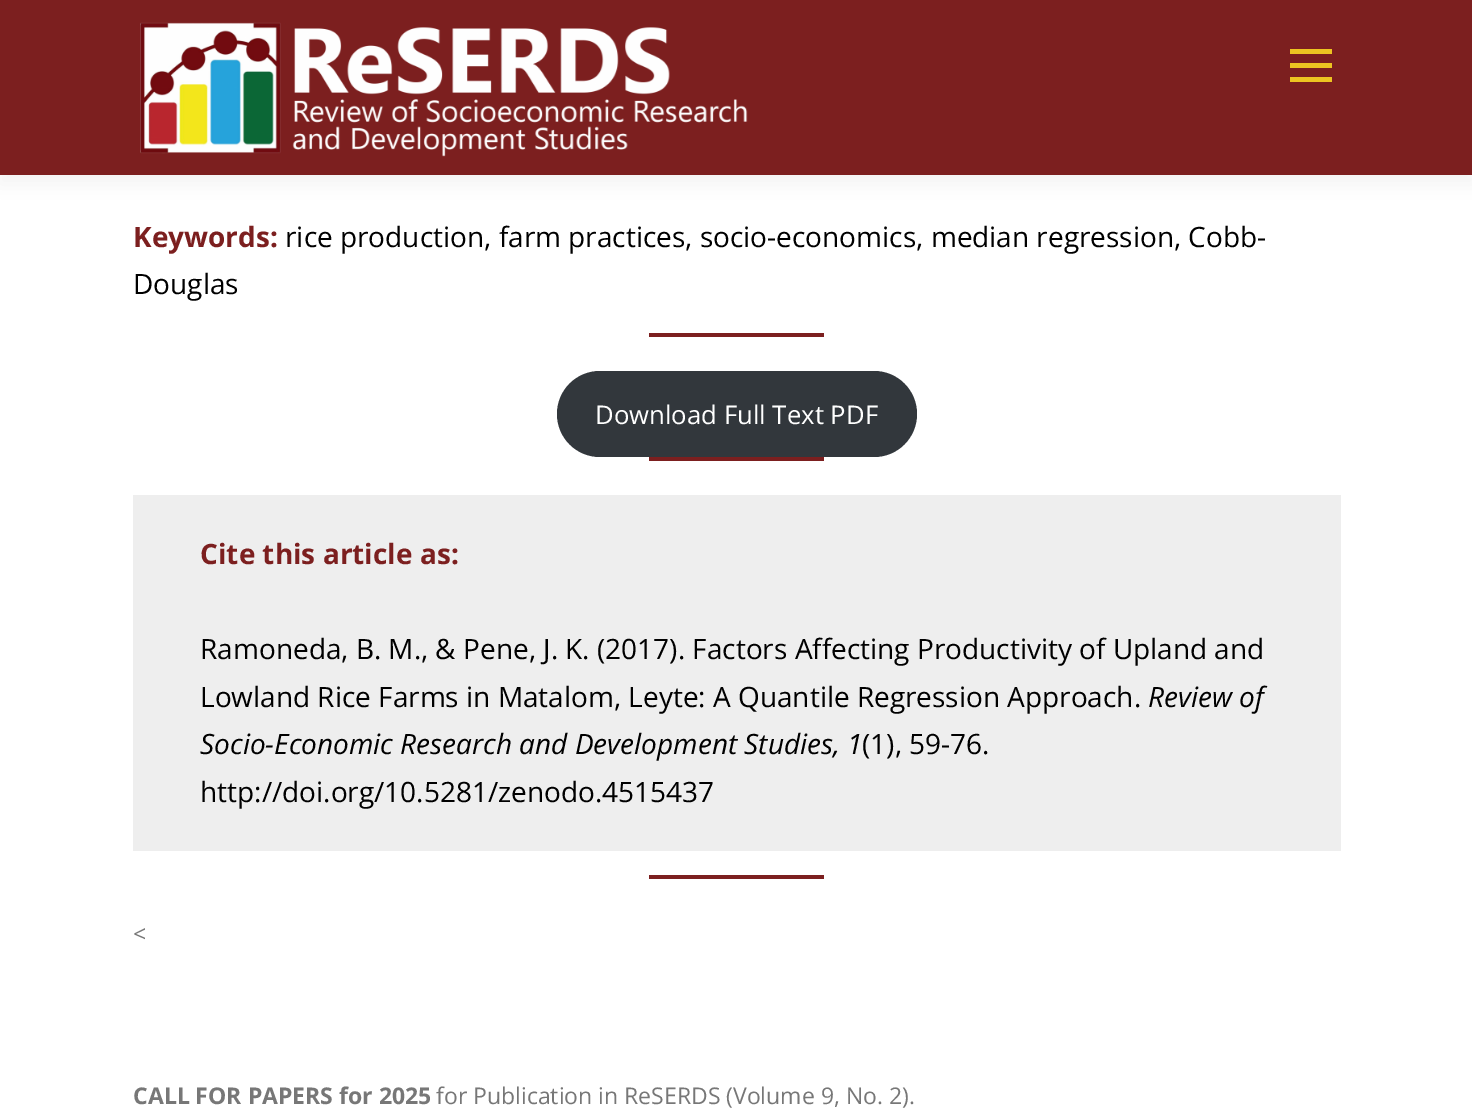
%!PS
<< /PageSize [1472 1114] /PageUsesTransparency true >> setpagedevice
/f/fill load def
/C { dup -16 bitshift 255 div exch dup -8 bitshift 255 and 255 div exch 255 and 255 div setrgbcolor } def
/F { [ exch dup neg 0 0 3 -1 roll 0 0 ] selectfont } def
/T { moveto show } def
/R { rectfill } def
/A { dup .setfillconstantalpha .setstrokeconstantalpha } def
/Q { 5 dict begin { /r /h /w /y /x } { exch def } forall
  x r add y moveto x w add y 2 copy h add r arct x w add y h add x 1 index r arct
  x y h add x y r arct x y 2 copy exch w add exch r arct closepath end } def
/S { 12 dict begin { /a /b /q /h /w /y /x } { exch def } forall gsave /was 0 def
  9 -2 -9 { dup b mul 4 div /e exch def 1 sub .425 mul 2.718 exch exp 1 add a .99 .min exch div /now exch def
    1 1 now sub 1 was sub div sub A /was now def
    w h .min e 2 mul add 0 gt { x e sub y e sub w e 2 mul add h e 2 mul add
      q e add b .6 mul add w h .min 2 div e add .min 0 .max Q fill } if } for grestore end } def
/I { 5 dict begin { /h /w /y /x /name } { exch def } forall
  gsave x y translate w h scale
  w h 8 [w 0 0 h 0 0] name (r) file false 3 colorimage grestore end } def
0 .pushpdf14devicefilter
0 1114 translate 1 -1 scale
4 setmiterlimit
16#FFFFFF C
0 0 1472 1114 R
16#323232 C
0 9 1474 175 0 9 .06 S
16#7C1F1F C
0 0 1472 175 R
(1.rgb) 140 22 608 135 I
16#EDC421 C
1290 63 42 5 R
1290 49 42 5 R
1290 77 42 5 R
/OpenSans-Bold 28 F
16#7C1F1F C
(Keywords:) 133 247 T
/OpenSans-Regular 28 F
16#000000 C
(rice production, farm practices, socio-economics, median regression, Cobb-) 285 247 T
(Douglas) 133 294 T
16#7C1F1F C
649 333 175 4 R
16#32373C C
557 371 360 86 43 Q f
/OpenSans-Regular 25.75 F
16#FFFFFF C
(Download Full Text PDF) 595 424 T
16#7C1F1F C
649 457 175 4 R
16#EEEEEE C
133 495 1208 356 R
/OpenSans-Bold 28 F
16#7C1F1F C
(Cite this article as:) 200 564 T
/OpenSans-Regular 28 F
16#000000 C
(Ramoneda, B. M., & Pene, J. K. \(2017\). Factors Affecting Productivity of Upland and) 200 659 T
(Lowland Rice Farms in Matalom, Leyte: A Quantile Regression Approach.) 200 707 T
/OpenSans-Italic 28 F
(Review of) 1148 707 T
(Socio-Economic Research and Development Studies, 1) 200 754 T
/OpenSans-Regular 28 F
(\(1\), 59-76.) 862 754 T
(http://doi.org/10.5281/zenodo.4515437) 200 802 T
16#7C1F1F C
649 875 175 4 R
/OpenSans-Regular 23 F
16#777777 C
(<) 133 942 T
/OpenSans-Bold 23 F
(CALL FOR PAPERS for 2025) 133 1104 T
/OpenSans-Regular 23 F
(for Publication in ReSERDS \(Volume 9, No. 2\).) 436 1104 T
.poppdf14devicefilter showpage
